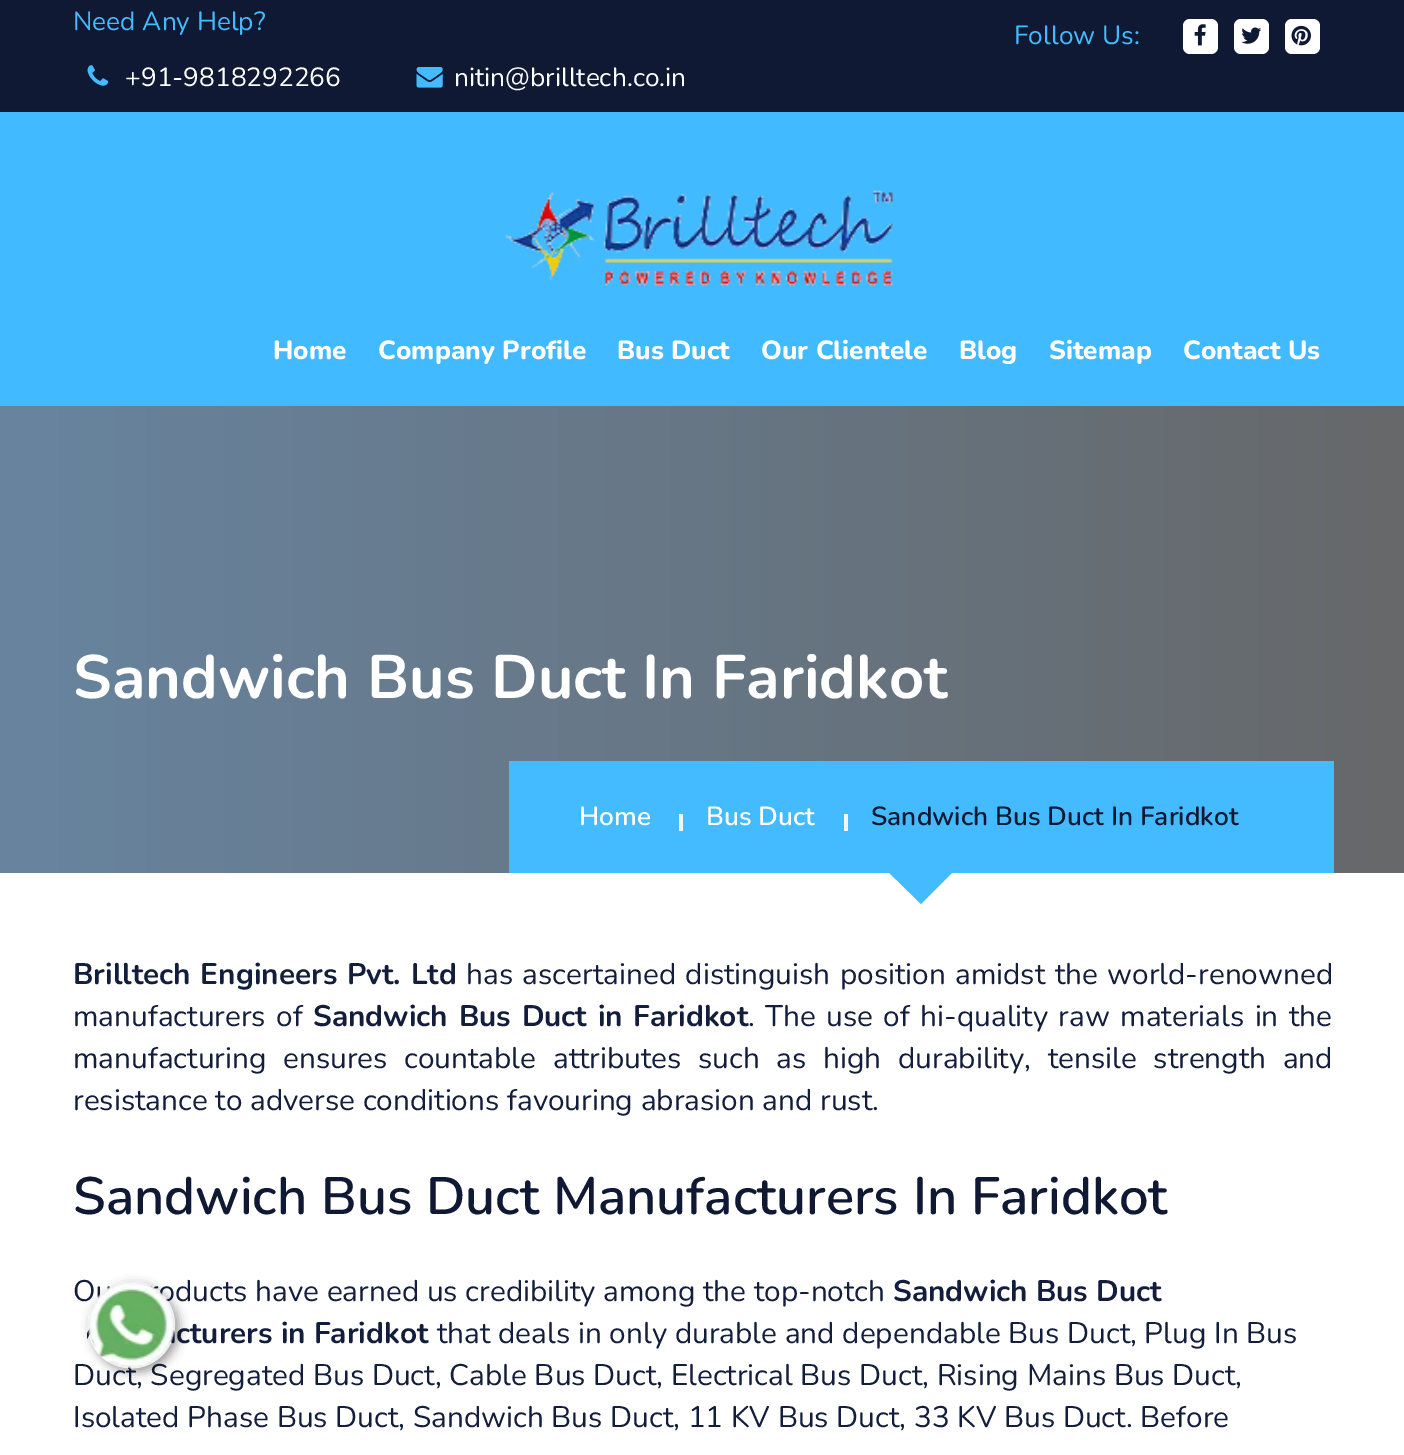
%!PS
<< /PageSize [1404 1455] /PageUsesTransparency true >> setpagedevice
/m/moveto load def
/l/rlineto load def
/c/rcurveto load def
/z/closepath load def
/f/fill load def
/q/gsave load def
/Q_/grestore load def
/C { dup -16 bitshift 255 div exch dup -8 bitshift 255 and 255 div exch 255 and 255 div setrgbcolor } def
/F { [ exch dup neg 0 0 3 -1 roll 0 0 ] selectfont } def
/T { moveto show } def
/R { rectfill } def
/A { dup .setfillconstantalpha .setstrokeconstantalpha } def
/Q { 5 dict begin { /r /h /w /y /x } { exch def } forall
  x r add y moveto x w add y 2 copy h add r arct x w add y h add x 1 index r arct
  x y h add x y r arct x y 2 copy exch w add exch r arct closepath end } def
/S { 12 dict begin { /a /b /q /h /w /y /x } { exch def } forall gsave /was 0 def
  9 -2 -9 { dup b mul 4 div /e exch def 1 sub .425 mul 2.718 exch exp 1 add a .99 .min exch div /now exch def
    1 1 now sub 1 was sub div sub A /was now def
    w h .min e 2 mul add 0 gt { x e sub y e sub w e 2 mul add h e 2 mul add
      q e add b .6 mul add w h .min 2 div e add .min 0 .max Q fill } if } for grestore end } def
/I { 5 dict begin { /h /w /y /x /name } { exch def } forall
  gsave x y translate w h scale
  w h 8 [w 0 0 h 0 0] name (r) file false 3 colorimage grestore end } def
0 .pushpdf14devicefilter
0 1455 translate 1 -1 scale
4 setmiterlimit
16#FFFFFF C
0 0 1404 1455 R
16#0F1934 C
0 0 1404 112 R
/Nunito-Regular 26.25 F
16#45BBFF C
(Need Any Help?) 73 30 T
(1.rgb) 87 65 22 21 I
16#FFFFFF C
(+91-9818292266) 125 86 T
(2.rgb) 416 67 27 21 I
(nitin@brilltech.co.in) 454 86 T
16#45BBFF C
(Follow Us:) 1014 44 T
16#FFFFFF C
1183 19 35 35 7 Q f
(3.rgb) 1194 24 12 22 I
1234 19 35 35 7 Q f
(4.rgb) 1241 27 21 17 I
1285 19 35 35 7 Q f
(5.rgb) 1291 25 20 21 I
16#42BAFF C
0 112 1404 294 R
(6.rgb) 505 190 388 96 I
/Nunito-ExtraBold 26.25 F
16#FFFFFF C
(Home) 273 359 T
(Company Profile) 378 359 T
(Bus Duct) 617 359 T
(Our Clientele) 761 359 T
(Blog) 959 359 T
(Sitemap) 1049 359 T
(Contact Us) 1183 359 T
16#45BBFF C
921 805 m 49 50 l -49 49 l -50 -49 l z f
0.6 A
q 0 406 m 1404 0 l 0 467 l -1404 0 l z clip newpath
<< /ShadingType 2 /ColorSpace /DeviceRGB /Coords [0 640 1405 640] /Extend [true true] /Function << /FunctionType 2 /Domain [0 1] /C0 [.004 .196 .373] /C1 [0 .012 .024] /N 1 >> >> shfill Q_
/Nunito-Bold 61.25 F
1 A
16#FFFFFF C
(Sandwich Bus Duct In Faridkot) 73 698 T
16#45BBFF C
509 761 825 112 R
/Nunito-SemiBold 26.25 F
16#FFFFFF C
(Home) 579 825 T
16#F4F4F4 C
679 814 4 17 R
16#FFFFFF C
(Bus Duct) 706 825 T
16#F4F4F4 C
844 814 4 17 R
16#0F1934 C
(Sandwich Bus Duct In Faridkot) 871 825 T
/Nunito-Bold 29.75 F
16#131E3C C
73 984 m 1.75 0 32 (Brilltech Engineers Pvt. Ltd) widthshow
/Nunito-Regular 29.75 F
466 984 m 1.75 0 32 (has ascertained distinguish position amidst the world-renowned) widthshow
73 1026 m 2.75 0 32 (manufacturers of) widthshow
/Nunito-Bold 29.75 F
313 1026 m 2.75 0 32 (Sandwich Bus Duct in Faridkot) widthshow
/Nunito-Regular 29.75 F
748 1026 m 2.75 0 32 (. The use of hi-quality raw materials in the) widthshow
73 1068 m 9 0 32 (manufacturing ensures countable attributes such as high durability, tensile strength and) widthshow
(resistance to adverse conditions favouring abrasion and rust.) 73 1110 T
/Nunito-SemiBold 52.5 F
16#0F1934 C
(Sandwich Bus Duct Manufacturers In Faridkot) 73 1214 T
/Nunito-Regular 29.75 F
16#131E3C C
(O) 73 1301 T
(ducts have earned us credibility among the top-notch) 175 1301 T
/Nunito-Bold 29.75 F
(Sandwich Bus Duct) 893 1301 T
(cturers in Faridkot) 176 1343 T
/Nunito-Regular 29.75 F
(that deals in only durable and dependable Bus Duct, Plug In Bus) 437 1343 T
(Duct, Segregated Bus Duct, Cable Bus Duct, Electrical Bus Duct, Rising Mains Bus Duct,) 73 1385 T
(Isolated Phase Bus Duct, Sandwich Bus Duct, 11 KV Bus Duct, 33 KV Bus Duct. Before) 73 1427 T
q
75 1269 m 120 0 l 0 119 l -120 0 l z 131.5 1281 m 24 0 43.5 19.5 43.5 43.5 c 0 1 l 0 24 -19.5 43.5 -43.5 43.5 c -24 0 -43.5 -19.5 -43.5 -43.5 c 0 -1 l 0 -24 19.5 -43.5 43.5 -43.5 c z eoclip newpath
16#000000 C
91 1285 88 87 43.5 5 .4 S
Q_
(7.rgb) 87 1281 89 88 I
.poppdf14devicefilter showpage
